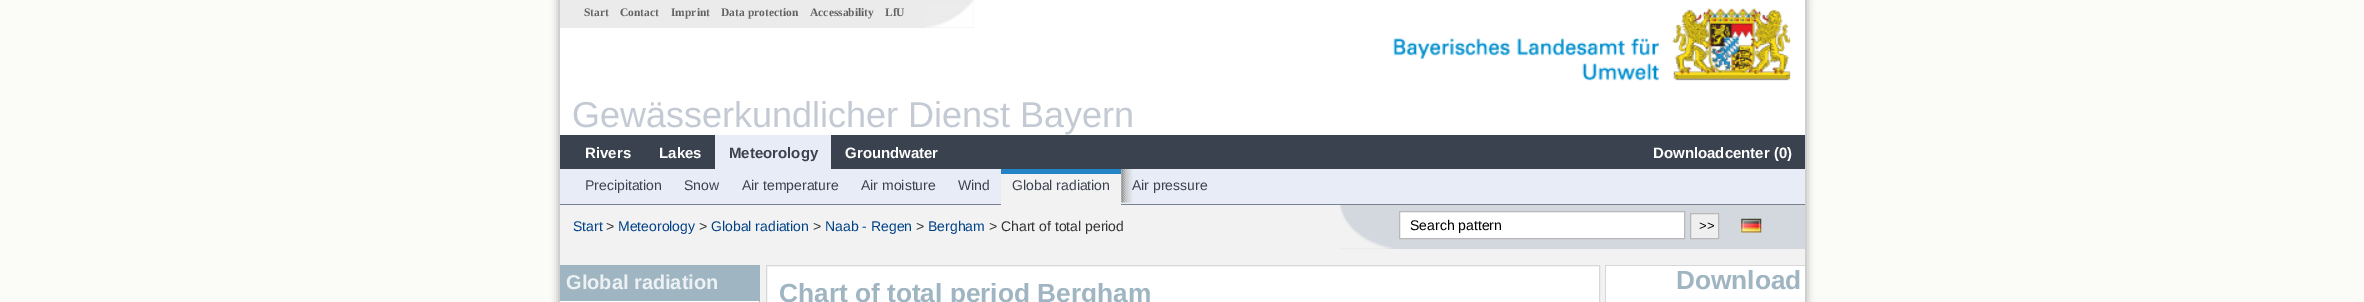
%!PS
<< /PageSize [2364 302] /PageUsesTransparency true >> setpagedevice
/m/moveto load def
/l/rlineto load def
/z/closepath load def
/f/fill load def
/s/stroke load def
/q/gsave load def
/Q_/grestore load def
/C { dup -16 bitshift 255 div exch dup -8 bitshift 255 and 255 div exch 255 and 255 div setrgbcolor } def
/F { [ exch dup neg 0 0 3 -1 roll 0 0 ] selectfont } def
/T { moveto show } def
/R { rectfill } def
/A { dup .setfillconstantalpha .setstrokeconstantalpha } def
/Q { 5 dict begin { /r /h /w /y /x } { exch def } forall
  x r add y moveto x w add y 2 copy h add r arct x w add y h add x 1 index r arct
  x y h add x y r arct x y 2 copy exch w add exch r arct closepath end } def
/S { 12 dict begin { /a /b /q /h /w /y /x } { exch def } forall gsave /was 0 def
  9 -2 -9 { dup b mul 4 div /e exch def 1 sub .425 mul 2.718 exch exp 1 add a .99 .min exch div /now exch def
    1 1 now sub 1 was sub div sub A /was now def
    w h .min e 2 mul add 0 gt { x e sub y e sub w e 2 mul add h e 2 mul add
      q e add b .6 mul add w h .min 2 div e add .min 0 .max Q fill } if } for grestore end } def
/I { 5 dict begin { /h /w /y /x /name } { exch def } forall
  gsave x y translate w h scale
  w h 8 [w 0 0 h 0 0] name (r) file false 3 colorimage grestore end } def
0 .pushpdf14devicefilter
0 302 translate 1 -1 scale
4 setmiterlimit
16#FBFBF8 C
0 0 2364 302 R
16#000000 C
559 0 1247 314 0 4 .35 S
16#FFFFFF C
560 0 1245 135 R
16#CECFD4 C
1805 0 1 302 R
559 0 1 302 R
16#EBEBEB C
560 0 414 28 R
(1.rgb) 926 0 48 28 I
/LiberationSerif-Bold 11.5 F
16#636363 C
(Start) 584 16 T
(Contact) 620 16 T
(Imprint) 671 16 T
(Data protection) 721 16 T
(Accessability) 810 16 T
(LfU) 885 16 T
(2.rgb) 1393 8 398 73 I
/LiberationSans-Regular 36 F
16#C3CAD4 C
(Gewässerkundlicher Dienst Bayern) 572 127 T
16#3B424F C
560 135 1245 34 R
/LiberationSans-Bold 15 F
16#FFFFFF C
(Rivers) 585 158 T
(Lakes) 659 158 T
16#E7ECF7 C
715 135 116 34 R
16#3B424F C
(Meteorology) 729 158 T
16#FFFFFF C
(Groundwater) 845 158 T
(Downloadcenter \(0\)) 1653 158 T
16#E7ECF7 C
560 169 1245 35 R
16#7A8291 C
560 204 1245 1 R
/LiberationSans-Regular 14 F
16#3B424F C
(Precipitation) 585 190 T
(Snow) 684 190 T
(Air temperature) 742 190 T
(Air moisture) 861 190 T
(Wind) 958 190 T
16#F2F2F2 C
1001 174 120 31 R
16#2484C6 C
1001 169 120 5 R
16#3B424F C
(Global radiation) 1012 190 T
(3.rgb) 1121 169 12 34 I
(Air pressure) 1132 190 T
16#F2F2F2 C
560 205 1245 97 R
16#004185 C
(Start) 573 231 T
16#333333 C
(>) 606 231 T
16#004185 C
(Meteorology) 618 231 T
16#333333 C
(>) 699 231 T
16#004185 C
(Global radiation) 711 231 T
16#333333 C
(>) 813 231 T
16#004185 C
(Naab - Regen) 825 231 T
16#333333 C
(>) 916 231 T
16#004185 C
(Bergham) 928 231 T
16#333333 C
(> Chart of total period) 989 231 T
16#D3D8DF C
1340 205 465 44 R
(4.rgb) 1340 205 54 44 I
16#FFFFFF C
1399.5 211.5 m 285 0 l 0 27 l -285 0 l z q f Q_
16#B8B8B8 C
s
16#000000 C
(Search pattern) 1410 230 T
16#EFEFEF C
1690.5 213.5 m 28 0 l 0 25 l -28 0 l z q f Q_
16#B8B8B8 C
s
/LiberationSans-Regular 13 F
16#000000 C
(>>) 1699 230 T
(5.rgb) 1741 218 21 15 I
16#FFFFFF C
560 301 199 1 R
16#9FB5C1 C
560 265 200 1 R
759 265 1 37 R
560 266 199 35 R
/LiberationSans-Bold 20 F
16#EDF1F3 C
(Global radiation) 566 289 T
16#FFFFFF C
766.5 265.5 m 833 0 l 0 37 l -833 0 l z q f Q_
16#D7D7D7 C
s
/LiberationSans-Bold 26.25 F
16#9FB5C1 C
(Chart of total period Bergham) 779 302 T
16#FFFFFF C
1606 266 199 36 R
16#D7D7D7 C
1605 265 200 1 R
1605 265 1 37 R
16#9FB5C1 C
(Download) 1676 289 T
.poppdf14devicefilter showpage
